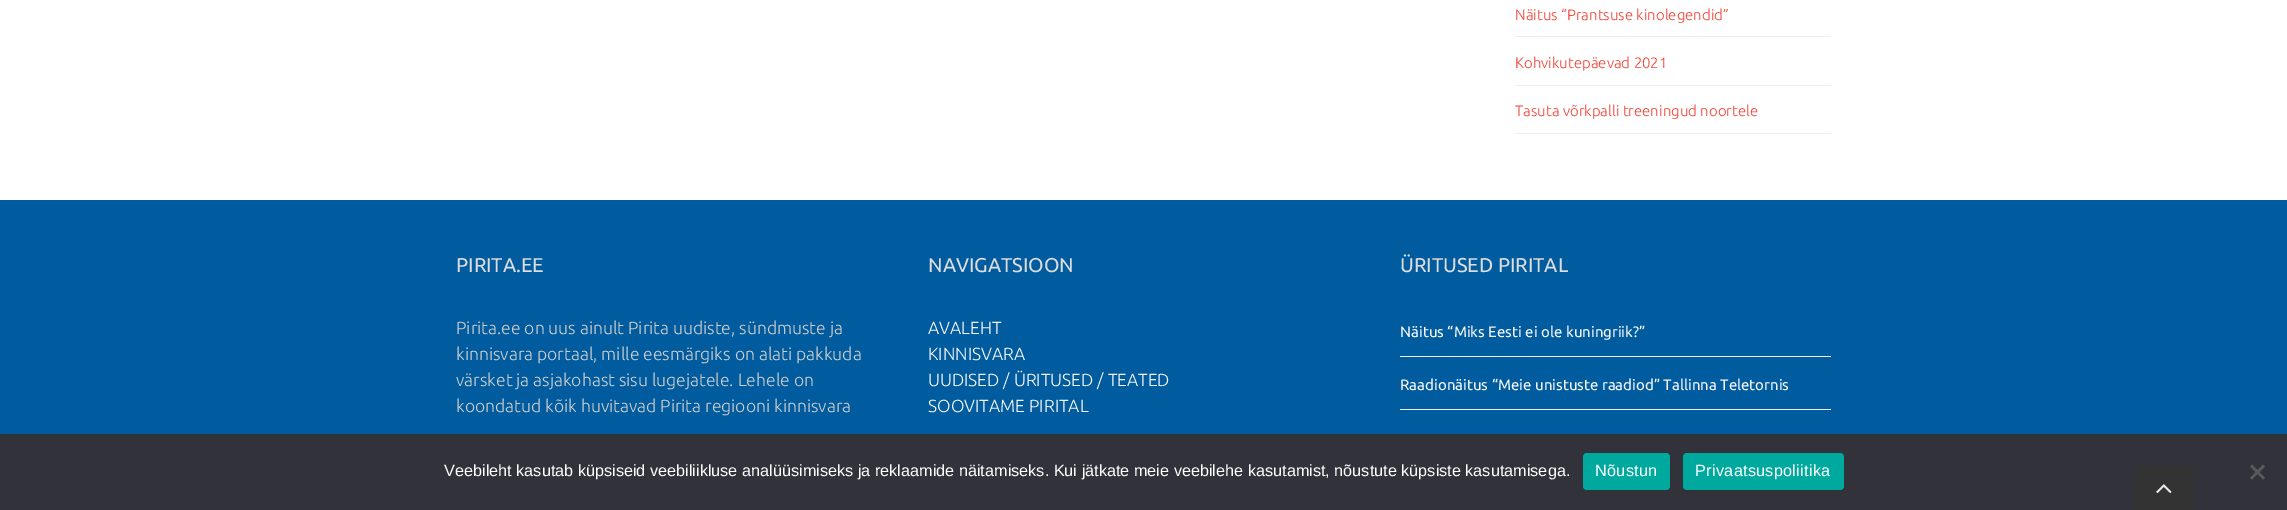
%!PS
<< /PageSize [2287 510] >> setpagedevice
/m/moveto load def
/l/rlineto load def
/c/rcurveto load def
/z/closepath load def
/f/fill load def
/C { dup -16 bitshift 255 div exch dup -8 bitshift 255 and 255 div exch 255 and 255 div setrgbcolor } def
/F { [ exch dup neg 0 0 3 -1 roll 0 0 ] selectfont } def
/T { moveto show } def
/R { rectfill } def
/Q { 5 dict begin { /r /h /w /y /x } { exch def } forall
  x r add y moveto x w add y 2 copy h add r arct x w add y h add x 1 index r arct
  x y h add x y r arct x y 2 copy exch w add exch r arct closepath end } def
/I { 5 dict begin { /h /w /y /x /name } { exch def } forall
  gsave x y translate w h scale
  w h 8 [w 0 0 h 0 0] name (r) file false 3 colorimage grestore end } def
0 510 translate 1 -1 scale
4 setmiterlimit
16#FFFFFF C
0 0 2287 510 R
16#EEEEEE C
1515 36 316 1 R
/Ubuntu-Light 15 F
16#F44336 C
(Näitus “Prantsuse kinolegendid”) 1515 20 T
16#EEEEEE C
1515 85 316 1 R
16#F44336 C
(Kohvikutepäevad 2021) 1515 68 T
16#EEEEEE C
1515 133 316 1 R
16#F44336 C
(Tasuta võrkpalli treeningud noortele) 1515 116 T
16#005C9E C
0 200 2287 234 R
/Ubuntu-Regular 20 F
16#DDDDDD C
(PIRITA.EE) 456 272 T
/Ubuntu-Light 17.5 F
16#CCCCCC C
(Pirita.ee on uus ainult Pirita uudiste, sündmuste ja) 456 334 T
(kinnisvara portaal, mille eesmärgiks on alati pakkuda) 456 360 T
(värsket ja asjakohast sisu lugejatele. Lehele on) 456 386 T
(koondatud kõik huvitavad Pirita regiooni kinnisvara) 456 412 T
/Ubuntu-Regular 20 F
16#DDDDDD C
(NAVIGATSIOON) 928 272 T
/Ubuntu-Light 17.5 F
16#F7F7F7 C
(AVALEHT) 928 334 T
(KINNISVARA) 928 360 T
(UUDISED / ÜRITUSED / TEATED) 928 386 T
(SOOVITAME PIRITAL) 928 412 T
/Ubuntu-Regular 20 F
16#DDDDDD C
(ÜRITUSED PIRITAL) 1400 272 T
16#EEEEEE C
1400 356 431 1 R
/Ubuntu-Regular 15 F
16#F7F7F7 C
(Näitus “Miks Eesti ei ole kuningriik?”) 1400 337 T
16#EEEEEE C
1400 409 431 1 R
16#F7F7F7 C
(Raadionäitus “Meie unistuste raadiod” Tallinna Teletornis) 1400 390 T
16#32323A C
0 434 2287 76 R
/LiberationSans-Regular 16.25 F
16#FFFFFF C
(Veebileht kasutab küpsiseid veebiliikluse analüüsimiseks ja reklaamide näitamiseks. Kui jätkate meie veebilehe kasutamist, nõustute küpsiste kasutamisega.) 444 476 T
16#00A99D C
1583 453 87 37 4 Q f
16#FFFFFF C
1595 476 m .3 0 (Nõustun) ashow
16#00A99D C
1683 453 161 37 4 Q f
16#FFFFFF C
1695 476 m .3 0 (Privaatsuspoliitika) ashow
16#59595D C
2263 464.5 m 2 2 l -13 13 l -2 -1.5 l z f
2250 466.5 m 2 -2 l 13 13.5 l -2 1.5 l z f
16#333334 C
2142 466 m 44 0 l 4.5 0 8 3.5 8 8 c 0 36 l -60 0 l 0 -36 l 0 -4.5 3.5 -8 8 -8 c z f
(1.rgb) 2156 484 16 10 I
showpage
